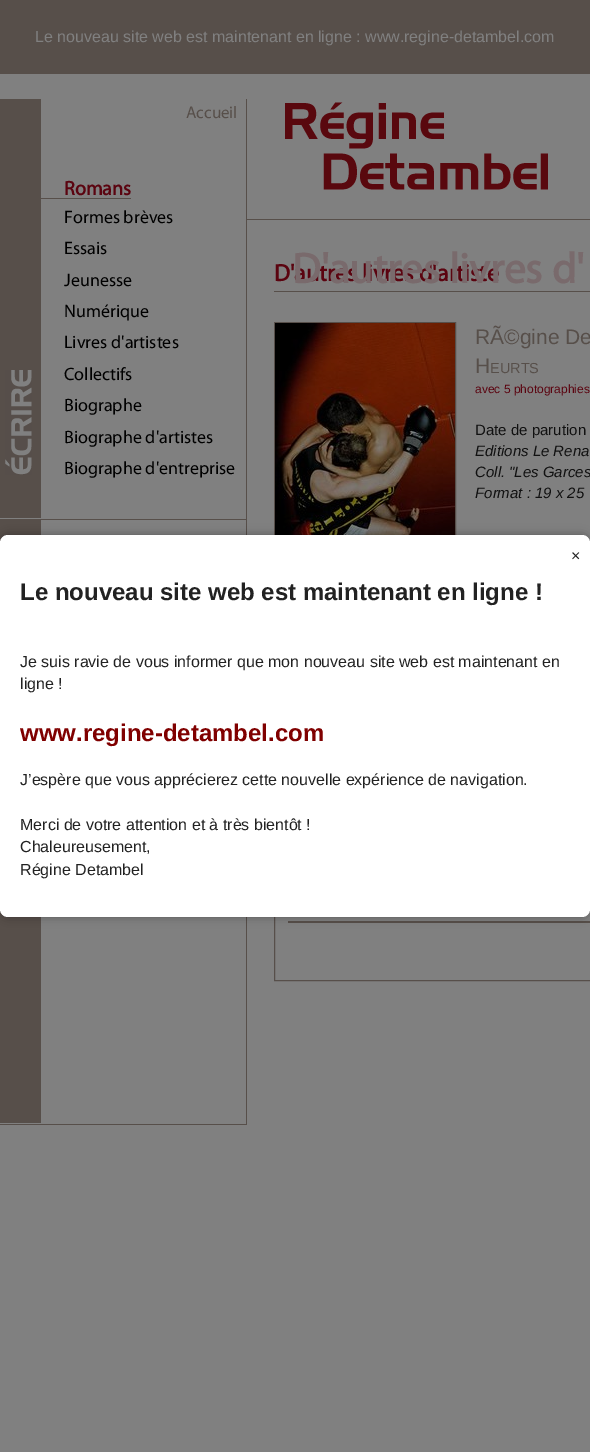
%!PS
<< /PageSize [590 1452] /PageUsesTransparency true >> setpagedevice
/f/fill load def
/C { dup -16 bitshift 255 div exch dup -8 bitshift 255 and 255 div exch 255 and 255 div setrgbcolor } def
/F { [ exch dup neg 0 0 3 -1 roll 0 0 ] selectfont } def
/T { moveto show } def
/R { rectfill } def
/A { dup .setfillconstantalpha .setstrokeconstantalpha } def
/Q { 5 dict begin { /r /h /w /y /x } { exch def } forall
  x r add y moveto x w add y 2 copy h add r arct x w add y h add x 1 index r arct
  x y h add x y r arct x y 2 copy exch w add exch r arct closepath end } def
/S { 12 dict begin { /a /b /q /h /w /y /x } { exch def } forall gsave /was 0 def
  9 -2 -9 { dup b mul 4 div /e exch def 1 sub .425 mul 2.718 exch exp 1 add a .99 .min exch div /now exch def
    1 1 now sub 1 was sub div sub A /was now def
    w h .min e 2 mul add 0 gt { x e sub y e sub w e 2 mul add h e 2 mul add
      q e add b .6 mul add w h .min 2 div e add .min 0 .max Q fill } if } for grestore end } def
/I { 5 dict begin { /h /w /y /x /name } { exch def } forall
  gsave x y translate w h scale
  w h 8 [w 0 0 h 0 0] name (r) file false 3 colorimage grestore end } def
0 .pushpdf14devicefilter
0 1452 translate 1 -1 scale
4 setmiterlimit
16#808080 C
0 0 590 1452 R
16#574F4A C
0 0 590 74 R
/LiberationSans-Regular 16 F
16#808080 C
(Le nouveau site web est maintenant en ligne : www.regine-detambel.com) 35 42 T
16#574F4A C
246 99 1 1026 R
0 519 246 1 R
0 99 41 419 R
(1.rgb) 5 370 27 105 I
/Myriad-Regular 17 F
(Accueil) 186 118 T
40 198 91 1 R
/Myriad-Bold 20 F
16#5B0410 C
(Romans) 64 195 T
/Myriad-Regular 18 F
16#000000 C
(Formes brèves) 64 223 T
(Essais) 64 254 T
(Jeunesse) 64 286 T
(Numérique) 64 317 T
(Livres d'artistes) 64 348 T
(Collectifs) 64 380 T
(Biographe) 64 411 T
(Biographe d'artistes) 64 443 T
(Biographe d'entreprise) 64 474 T
16#574F4A C
0 1124 246 1 R
0 520 41 603 R
247 219 343 1 R
(2.rgb) 285 102 263 88 I
274 291 316 1 R
/Myriad-Bold 24 F
16#5B0410 C
(D'autres livres d'artiste) 274 281 T
/Myriad-Bold 43 F
16#796A6C C
(D'autres livres d') 292 283 T
16#574F4A C
274.5 322.5 181 272 rectstroke
(3.rgb) 275 323 180 212 I
/LiberationSans-Regular 21 F
(RÃ©gine De) 475 344 T
(H) 475 373 T
/LiberationSans-Regular 14.5 F
(EURTS) 490 373 T
/LiberationSans-Regular 12 F
16#5B0410 C
(avec 5 photographies) 475 393 T
/LiberationSans-Regular 15 F
16#111111 C
(Date de parution) 475 435 T
/LiberationSans-Italic 15 F
(Editions Le Rena) 475 456 T
(Coll. "Les Garces) 475 477 T
(Format : 19 x 25) 475 498 T
16#574F4A C
274.5 660.5 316 320 rectstroke
288 921 302 2 R
16#000000 C
0 535 590 382 8 5 .3 S
16#FFFFFF C
0 535 590 382 8 Q f
/LiberationSans-Regular 16 F
16#222222 C
(×) 571 561 T
/LiberationSans-Bold 24 F
(Le nouveau site web est maintenant en ligne !) 20 600 T
/LiberationSans-Regular 16 F
(Je suis ravie de vous informer que mon nouveau site web est maintenant en) 20 667 T
(ligne !) 20 689 T
/LiberationSans-Bold 24 F
16#800000 C
(www.regine-detambel.com) 20 741 T
/LiberationSans-Regular 16 F
16#222222 C
(J’espère que vous apprécierez cette nouvelle expérience de navigation.) 20 785 T
(Merci de votre attention et à très bientôt !) 20 830 T
(Chaleureusement,) 20 852 T
(Régine Detambel) 20 875 T
.poppdf14devicefilter showpage
